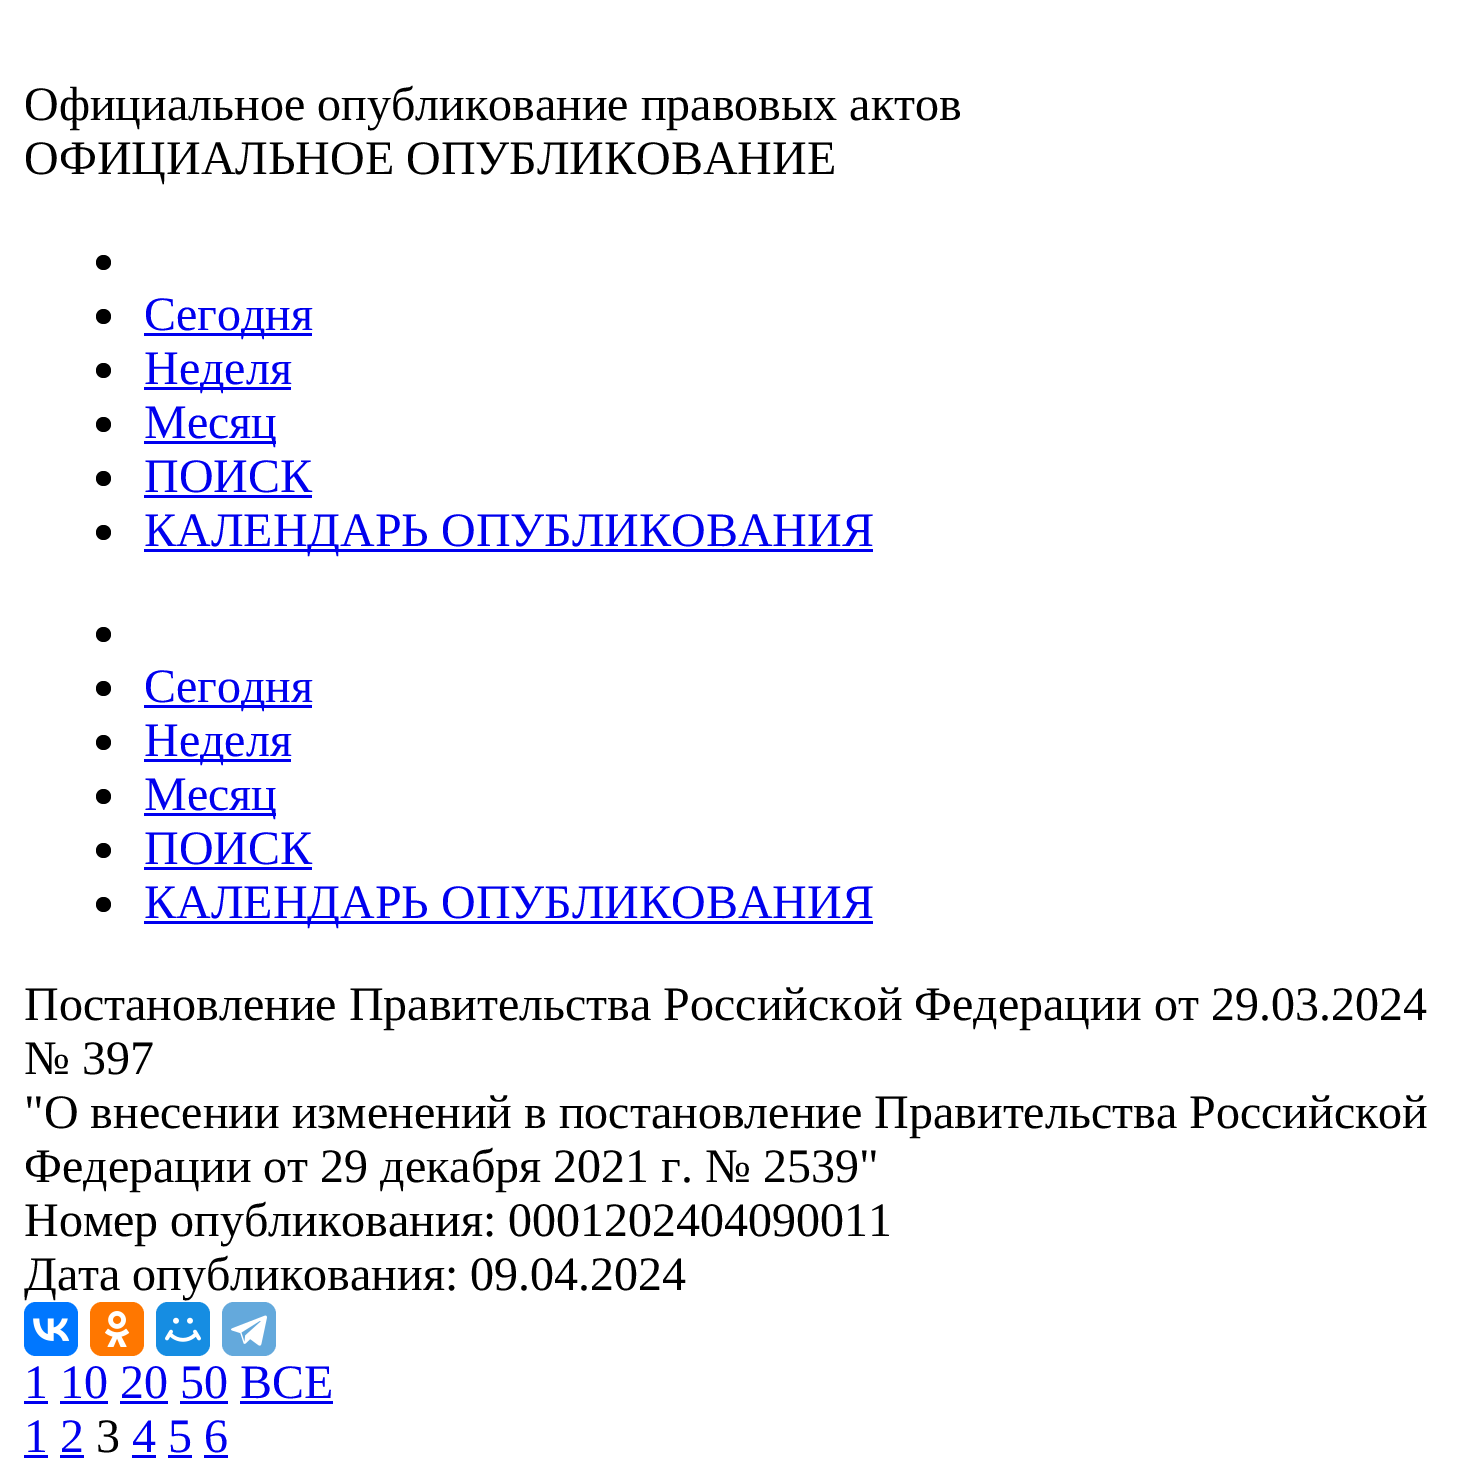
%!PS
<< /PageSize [1477 1471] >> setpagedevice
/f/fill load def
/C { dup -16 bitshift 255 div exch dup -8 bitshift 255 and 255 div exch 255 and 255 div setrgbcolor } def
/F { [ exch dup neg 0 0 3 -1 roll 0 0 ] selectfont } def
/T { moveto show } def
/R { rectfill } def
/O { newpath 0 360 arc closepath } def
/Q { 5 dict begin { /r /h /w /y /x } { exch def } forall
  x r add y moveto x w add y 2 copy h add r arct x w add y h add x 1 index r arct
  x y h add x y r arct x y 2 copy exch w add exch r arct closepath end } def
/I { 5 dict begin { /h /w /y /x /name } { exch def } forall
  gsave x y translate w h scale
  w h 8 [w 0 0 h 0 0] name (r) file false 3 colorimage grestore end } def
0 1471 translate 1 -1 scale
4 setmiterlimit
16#FFFFFF C
0 0 1477 1471 R
/LiberationSerif-Regular 48 F
16#000000 C
(Официальное опубликование правовых актов) 24 120 T
(ОФИЦИАЛЬНОЕ ОПУБЛИКОВАНИЕ) 24 174 T
103.5 262.5 7.5 O f
103.5 316.5 7.5 O f
16#0000EE C
144 333 168 3 R
(Сегодня) 144 330 T
16#000000 C
103.5 370.5 7.5 O f
16#0000EE C
144 387 147 3 R
(Неделя) 144 384 T
16#000000 C
103.5 424.5 7.5 O f
16#0000EE C
144 441 132 3 R
(Месяц) 144 438 T
16#000000 C
103.5 478.5 7.5 O f
16#0000EE C
(ПОИСК) 144 492 T
144 495 168 3 R
16#000000 C
103.5 532.5 7.5 O f
16#0000EE C
144 549 729 3 R
(КАЛЕНДАРЬ ОПУБЛИКОВАНИЯ) 144 546 T
16#000000 C
103.5 634.5 7.5 O f
103.5 688.5 7.5 O f
16#0000EE C
144 705 168 3 R
(Сегодня) 144 702 T
16#000000 C
103.5 742.5 7.5 O f
16#0000EE C
144 759 147 3 R
(Неделя) 144 756 T
16#000000 C
103.5 796.5 7.5 O f
16#0000EE C
144 813 132 3 R
(Месяц) 144 810 T
16#000000 C
103.5 850.5 7.5 O f
16#0000EE C
(ПОИСК) 144 864 T
144 867 168 3 R
16#000000 C
103.5 904.5 7.5 O f
16#0000EE C
144 921 729 3 R
(КАЛЕНДАРЬ ОПУБЛИКОВАНИЯ) 144 918 T
16#000000 C
(Постановление Правительства Российской Федерации от 29.03.2024) 24 1020 T
(№ 397) 24 1074 T
("О внесении изменений в постановление Правительства Российской) 24 1128 T
(Федерации от 29 декабря 2021 г. № 2539") 24 1182 T
(Номер опубликования: 0001202404090011) 24 1236 T
(Дата опубликования: 09.04.2024) 24 1290 T
16#0077FF C
24 1302 54 54 12 Q f
(1.rgb) 33 1318 37 23 I
16#FF7700 C
90 1302 54 54 12 Q f
(2.rgb) 105 1311 25 36 I
16#168DE2 C
156 1302 54 54 12 Q f
(3.rgb) 165 1317 36 25 I
16#64A9DC C
222 1302 54 54 12 Q f
(4.rgb) 231 1315 36 31 I
16#0000EE C
(1 10 20 50 ВСЕ) 24 1398 T
24 1401 24 3 R
60 1401 48 3 R
120 1401 48 3 R
180 1401 48 3 R
240 1401 93 3 R
(1 2) 24 1452 T
24 1455 24 3 R
16#000000 C
(3) 96 1452 T
16#0000EE C
(4 5 6) 132 1452 T
132 1455 24 3 R
60 1455 24 3 R
168 1455 24 3 R
204 1455 24 3 R
showpage
